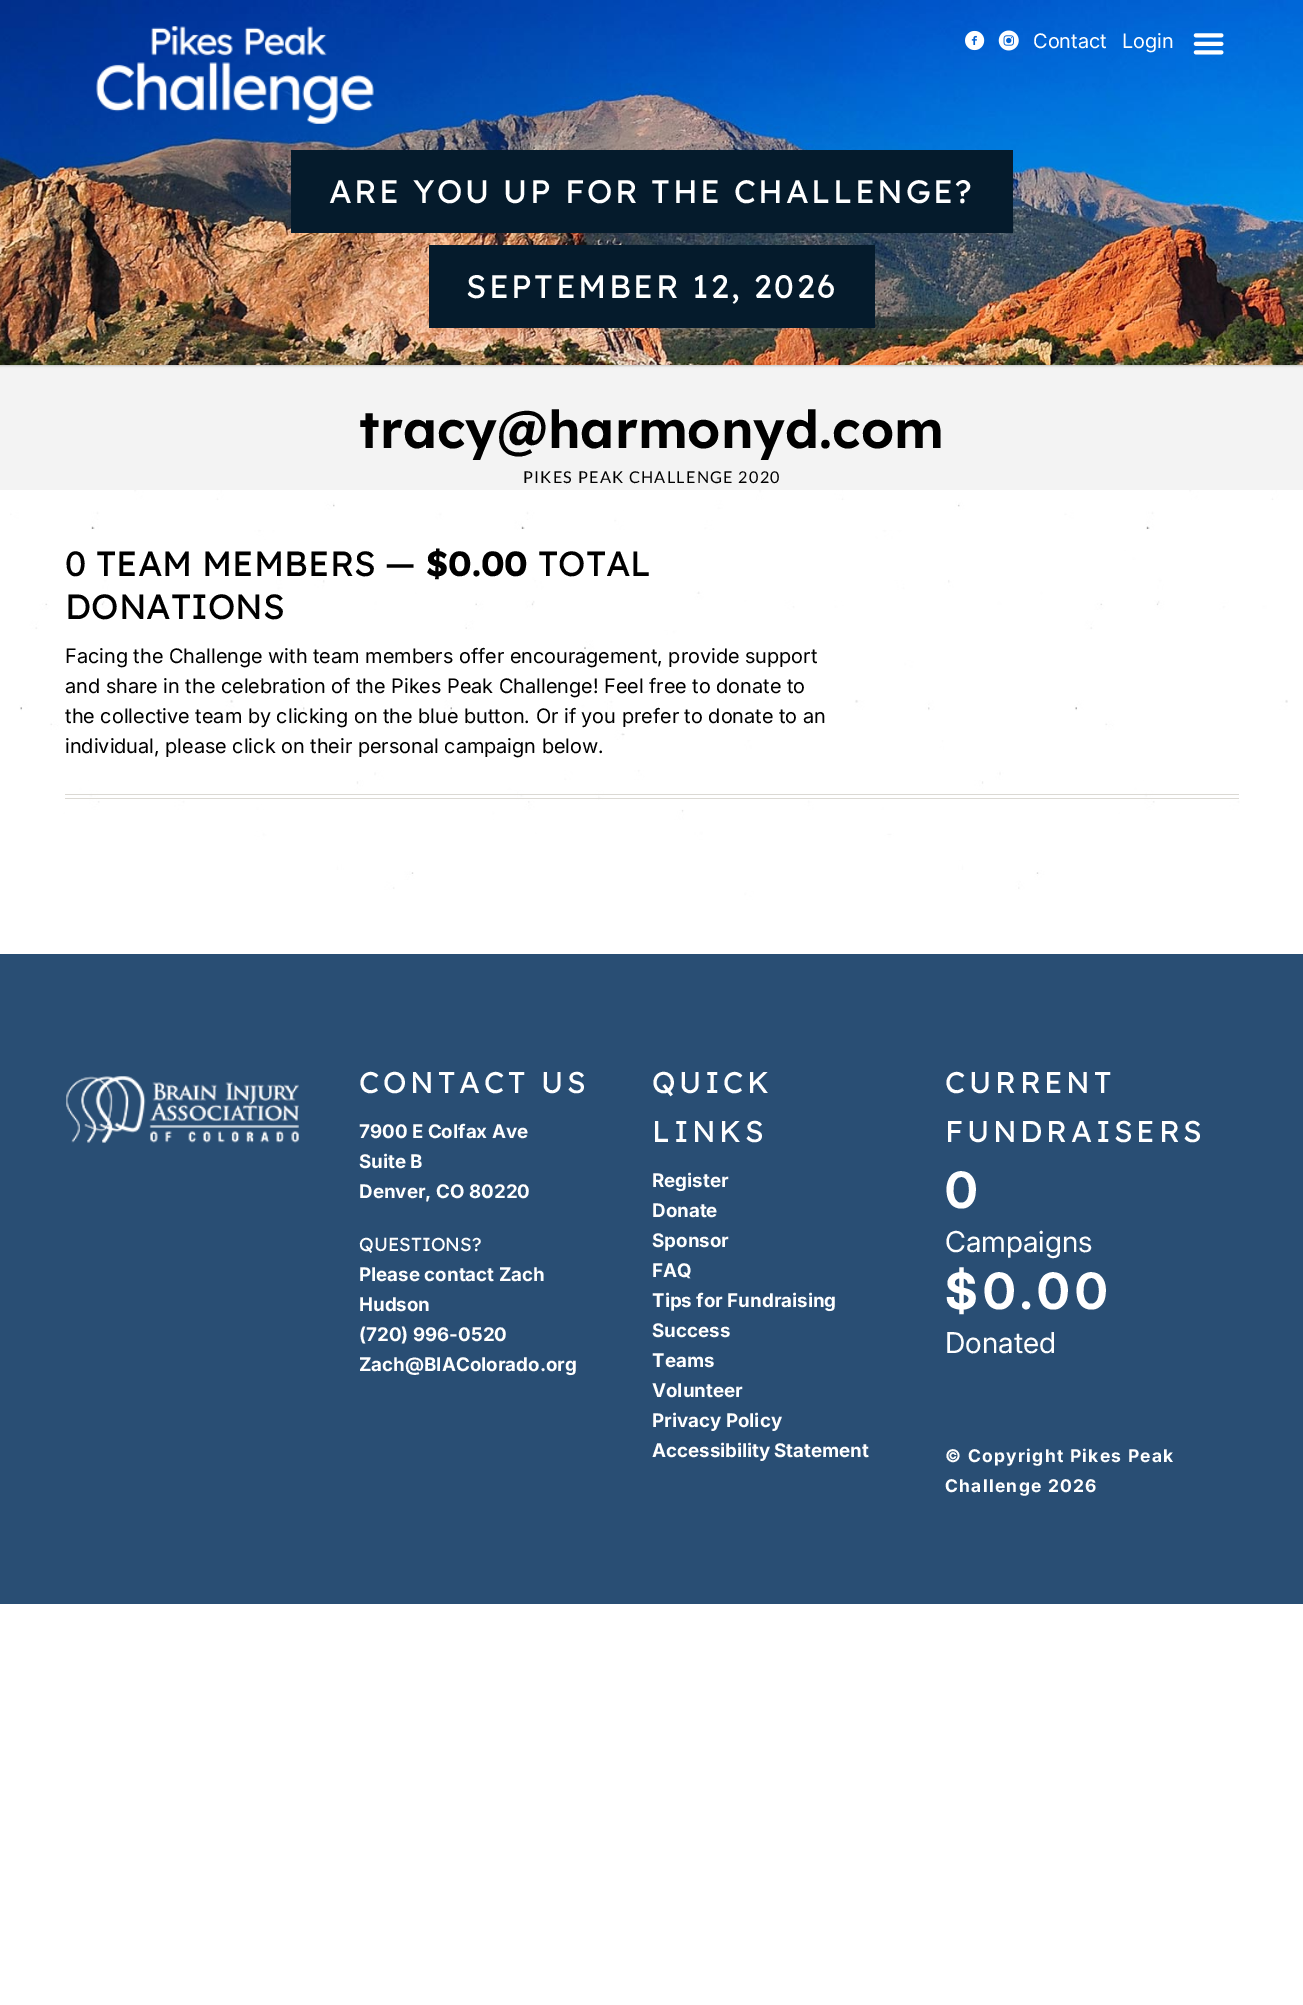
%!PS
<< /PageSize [1303 2005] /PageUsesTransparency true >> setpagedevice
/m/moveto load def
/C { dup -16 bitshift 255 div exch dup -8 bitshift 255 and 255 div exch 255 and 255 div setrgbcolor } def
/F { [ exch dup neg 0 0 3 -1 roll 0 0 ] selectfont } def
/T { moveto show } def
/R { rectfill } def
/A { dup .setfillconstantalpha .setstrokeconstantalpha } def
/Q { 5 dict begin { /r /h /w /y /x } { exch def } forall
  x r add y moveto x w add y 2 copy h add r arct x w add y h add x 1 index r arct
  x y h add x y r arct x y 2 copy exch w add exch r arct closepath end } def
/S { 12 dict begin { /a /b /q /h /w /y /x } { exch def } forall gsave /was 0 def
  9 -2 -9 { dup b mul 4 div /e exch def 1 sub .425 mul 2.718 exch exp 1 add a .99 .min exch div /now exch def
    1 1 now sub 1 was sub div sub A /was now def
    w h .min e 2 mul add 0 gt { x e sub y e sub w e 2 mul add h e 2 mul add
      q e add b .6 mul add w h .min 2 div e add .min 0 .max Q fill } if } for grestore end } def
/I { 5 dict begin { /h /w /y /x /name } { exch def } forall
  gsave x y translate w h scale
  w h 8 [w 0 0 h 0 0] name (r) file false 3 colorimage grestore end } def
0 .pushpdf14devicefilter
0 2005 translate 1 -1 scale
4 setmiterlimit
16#FFFFFF C
0 0 1303 2005 R
(1.rgb) 10 490 1278 464 I
16#F3F3F3 C
0 365 1303 125 R
16#000000 C
0 1 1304 365 0 1 .2 S
(2.rgb) 0 0 1303 365 I
(3.rgb) 965 30 20 21 I
(4.rgb) 998 30 21 21 I
/Inter-Regular 20 F
16#FFFFFF C
(Contact) 1033 48 T
(Login) 1122 48 T
(5.rgb) 1193 33 31 22 I
(6.rgb) 96 26 278 98 I
16#051B2C C
291 150 722 83 R
/Lexend-Regular 32.5 F
16#FFFFFF C
329 203 m 2.5 0 (ARE YOU UP FOR THE CHALLENGE?) ashow
16#051B2C C
429 245 446 83 R
16#FFFFFF C
466 298 m 2.5 0 (SEPTEMBER 12, 2026) ashow
/Lexend-SemiBold 52.5 F
16#000000 C
(tracy@harmonyd.com) 359 448 T
/Lato-Regular 16.25 F
523 483 m 1.25 0 (PIKES PEAK CHALLENGE 2020) ashow
/Lexend-Regular 35 F
(0 TEAM MEMBERS —) 65 576 T
/Lexend-Bold 35 F
($0.00) 426 576 T
/Lexend-Regular 35 F
(TOTAL) 538 576 T
(DONATIONS) 65 619 T
/Inter-Regular 20 F
(Facing the Challenge with team members offer encouragement, provide support) 65 663 T
(and share in the celebration of the Pikes Peak Challenge! Feel free to donate to) 65 693 T
(the collective team by clicking on the blue button. Or if you prefer to donate to an) 65 723 T
(individual, please click on their personal campaign below.) 65 753 T
16#DBD9D4 C
65 794 1174 1 R
65 798 1174 1 R
16#294E74 C
0 954 1303 650 R
(7.rgb) 66 1076 233 67 I
/Lexend-Regular 30 F
16#FFFFFF C
359 1093 m 3.75 0 (CONTACT US) ashow
/Inter-Bold 18.75 F
(7900 E Colfax Ave) 359 1138 T
(Suite B) 359 1168 T
(Denver, CO 80220) 359 1198 T
/Lexend-Regular 18.75 F
(QUESTIONS?) 359 1251 T
/Inter-Bold 18.75 F
(Please contact Zach) 359 1281 T
(Hudson) 359 1311 T
(\(720\) 996-0520) 359 1341 T
(Zach@BIAColorado.org) 359 1371 T
/Lexend-Regular 30 F
652 1093 m 3.75 0 (QUICK) ashow
652 1142 m 3.75 0 (LINKS) ashow
/Inter-Bold 18.75 F
(Register) 652 1187 T
(Donate) 652 1217 T
(Sponsor) 652 1247 T
(FAQ) 652 1277 T
(Tips for Fundraising) 652 1307 T
(Success) 652 1337 T
(Teams) 652 1367 T
(Volunteer) 652 1397 T
(Privacy Policy) 652 1427 T
652 1457 m -1 0 32 (Accessibility Statement) widthshow
/Lexend-Regular 30 F
945 1093 m 3.75 0 (CURRENT) ashow
945 1142 m 3.75 0 (FUNDRAISERS) ashow
/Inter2-Bold 50 F
945 1208 m 5 0 (0) ashow
/Inter2-Regular 28.75 F
(Campaigns) 945 1252 T
/Inter2-Bold 50 F
945 1309 m 5 0 ($0.00) ashow
/Inter2-Regular 28.75 F
(Donated) 945 1353 T
/Inter-Bold 17.5 F
945 1462 m 1.25 0 (© Copyright Pikes Peak) ashow
945 1492 m 1.25 0 (Challenge 2026) ashow
.poppdf14devicefilter showpage
